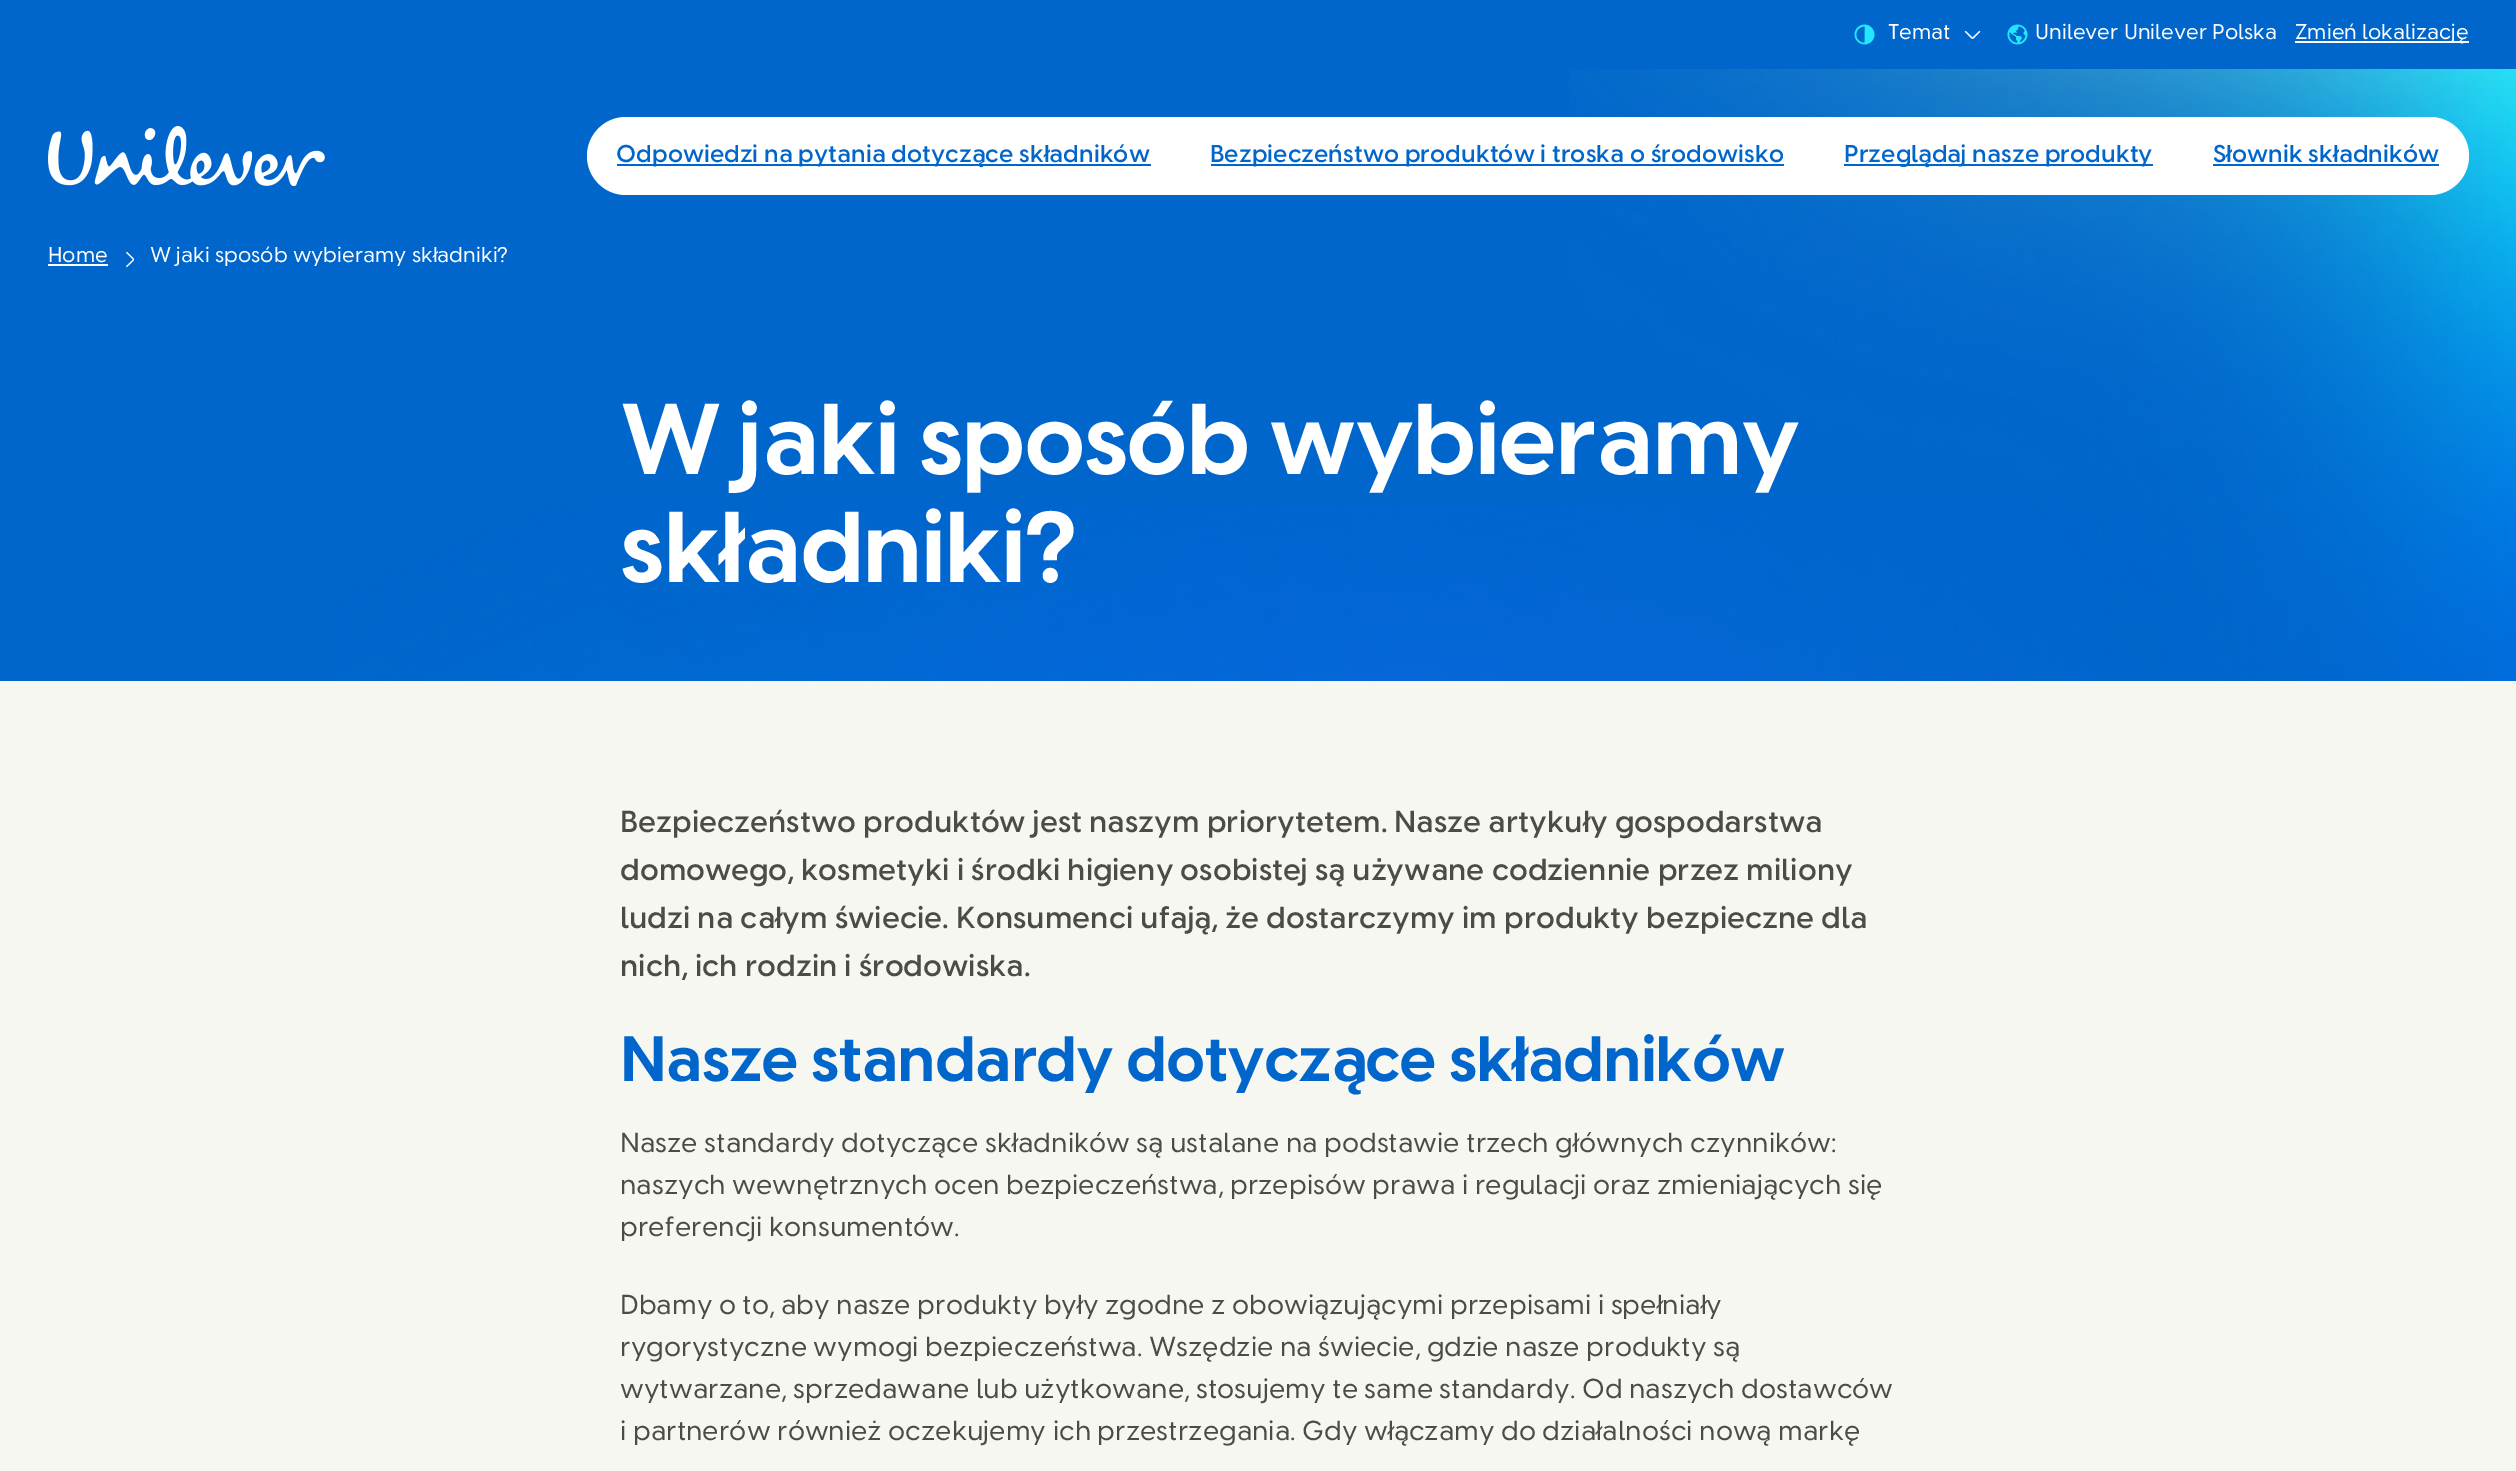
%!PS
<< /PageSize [2516 1471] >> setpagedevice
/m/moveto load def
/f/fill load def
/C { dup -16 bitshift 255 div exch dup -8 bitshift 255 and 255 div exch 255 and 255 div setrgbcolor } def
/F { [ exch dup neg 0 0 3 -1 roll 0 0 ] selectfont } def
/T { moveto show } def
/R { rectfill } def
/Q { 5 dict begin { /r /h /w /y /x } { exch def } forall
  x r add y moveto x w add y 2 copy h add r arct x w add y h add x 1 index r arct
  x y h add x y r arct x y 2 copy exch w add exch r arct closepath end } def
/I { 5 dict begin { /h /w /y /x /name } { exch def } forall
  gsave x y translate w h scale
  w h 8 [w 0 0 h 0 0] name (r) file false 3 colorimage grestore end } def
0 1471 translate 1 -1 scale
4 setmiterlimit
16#0066CC C
0 0 2516 1471 R
(1.rgb) 1854 24 21 21 I
/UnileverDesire-Regular 21 F
16#FFFFFF C
(Temat) 1888 39 T
(2.rgb) 1964 30 17 9 I
(3.rgb) 2007 24 21 21 I
(Unilever Unilever Polska) 2035 39 T
2295 41 174 2 R
(Zmień lokalizację) 2295 39 T
(4.rgb) 48 126 277 60 I
(6.rgb) 1569 69 947 612 I
587 117 1882 78 39 Q f
16#0066CC C
617 164 534 2 R
/UnileverDesire-SemiBold 24 F
(Odpowiedzi na pytania dotyczące składników) 616 162 T
1211 164 573 2 R
(Bezpieczeństwo produktów i troska o środowisko) 1210 162 T
1844 164 309 2 R
(Przeglądaj nasze produkty) 1844 162 T
(Słownik składników) 2213 162 T
2213 164 226 2 R
/UnileverDesire-Regular 21 F
16#FFFFFF C
(Home) 48 262 T
48 264 60 2 R
(5.rgb) 126 251 9 17 I
(W jaki sposób wybieramy składniki?) 150 262 T
/UnileverDesire-Bold 99 F
620 474 m -2 0 (W jaki sposób wybieramy) ashow
(7.rgb) 336 505 1825 176 I
620 582 m -2 0 (składniki?) ashow
16#F6F7F0 C
0 681 2516 790 R
/UnileverDesire-SemiBold 30 F
16#4D4B46 C
(Bezpieczeństwo produktów jest naszym priorytetem. Nasze artykuły gospodarstwa) 620 832 T
(domowego, kosmetyki i środki higieny osobistej są używane codziennie przez miliony) 620 880 T
(ludzi na całym świecie. Konsumenci ufają, że dostarczymy im produkty bezpieczne dla) 620 928 T
(nich, ich rodzin i środowiska.) 620 976 T
/UnileverDesire-Bold 63 F
16#0066CC C
620 1081 m -1.25 0 (Nasze standardy dotyczące składników) ashow
/UnileverDesire-Regular 27 F
16#4D4B46 C
(Nasze standardy dotyczące składników są ustalane na podstawie trzech głównych czynników:) 620 1152 T
(naszych wewnętrznych ocen bezpieczeństwa, przepisów prawa i regulacji oraz zmieniających się) 620 1194 T
(preferencji konsumentów.) 620 1236 T
(Dbamy o to, aby nasze produkty były zgodne z obowiązującymi przepisami i spełniały) 620 1314 T
(rygorystyczne wymogi bezpieczeństwa. Wszędzie na świecie, gdzie nasze produkty są) 620 1356 T
(wytwarzane, sprzedawane lub użytkowane, stosujemy te same standardy. Od naszych dostawców) 620 1398 T
(i partnerów również oczekujemy ich przestrzegania. Gdy włączamy do działalności nową markę) 620 1440 T
showpage
